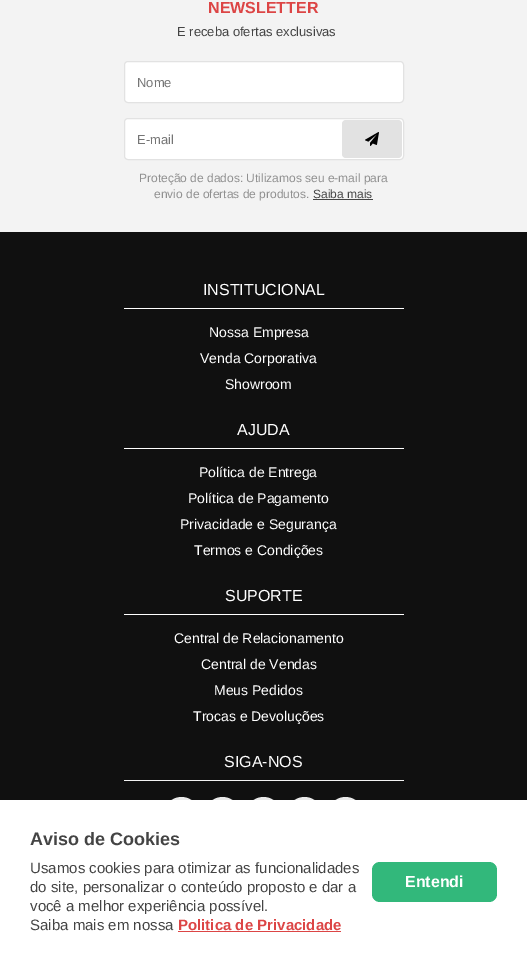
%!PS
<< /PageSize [527 964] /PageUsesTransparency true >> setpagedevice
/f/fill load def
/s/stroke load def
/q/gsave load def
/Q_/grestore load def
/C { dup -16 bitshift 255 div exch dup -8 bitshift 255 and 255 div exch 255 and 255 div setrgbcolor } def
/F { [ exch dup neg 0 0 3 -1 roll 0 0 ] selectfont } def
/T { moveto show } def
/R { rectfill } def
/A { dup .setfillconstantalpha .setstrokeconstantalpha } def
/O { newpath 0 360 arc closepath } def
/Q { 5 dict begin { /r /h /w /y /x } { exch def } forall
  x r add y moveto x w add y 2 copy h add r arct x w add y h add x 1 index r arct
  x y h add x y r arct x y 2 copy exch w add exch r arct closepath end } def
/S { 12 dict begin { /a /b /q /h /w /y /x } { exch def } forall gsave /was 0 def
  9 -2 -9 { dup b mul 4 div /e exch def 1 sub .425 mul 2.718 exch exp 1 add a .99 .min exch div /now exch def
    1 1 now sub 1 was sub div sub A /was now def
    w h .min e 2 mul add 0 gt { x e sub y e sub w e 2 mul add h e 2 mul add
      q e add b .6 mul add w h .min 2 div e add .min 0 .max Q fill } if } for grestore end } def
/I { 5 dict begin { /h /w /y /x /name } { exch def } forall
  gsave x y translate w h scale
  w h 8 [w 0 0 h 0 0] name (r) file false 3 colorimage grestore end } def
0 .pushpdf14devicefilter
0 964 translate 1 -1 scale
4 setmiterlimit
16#F3F3F3 C
0 0 527 964 R
/Arimo-Bold 16 F
16#DC4545 C
(NEWSLETTER) 208 13 T
/Arimo-Regular 13 F
16#444444 C
(E receba ofertas exclusivas) 177 36 T
16#FFFFFF C
124.5 61.5 279 41 3.5 Q q f Q_
16#E2E2E2 C
s
16#757575 C
(Nome) 137 87 T
16#FFFFFF C
124.5 118.5 279 41 3.5 Q q f Q_
16#E2E2E2 C
s
16#757575 C
(E-mail) 137 144 T
16#E2E2E2 C
342 120 60 38 4 Q f
(1.rgb) 365 132 14 14 I
/Arimo-Regular 12 F
16#909090 C
(Proteção de dados: Utilizamos seu e-mail para) 139 182 T
(envio de ofertas de produtos.) 154 198 T
16#444444 C
(Saiba mais) 313 198 T
313 199 60 1 R
16#101010 C
0 232 527 568 R
16#FFFFFF C
124 308 280 1 R
/Arimo-Regular 16 F
(INSTITUCIONAL) 203 295 T
/Arimo-Regular 14 F
(Nossa Empresa) 209 337 T
(Venda Corporativa) 200 363 T
(Showroom) 225 389 T
124 448 280 1 R
/Arimo-Regular 16 F
(AJUDA) 237 435 T
/Arimo-Regular 14 F
(Política de Entrega) 199 477 T
(Política de Pagamento) 188 503 T
(Privacidade e Segurança) 180 529 T
(Termos e Condições) 194 555 T
124 614 280 1 R
/Arimo-Regular 16 F
(SUPORTE) 225 601 T
/Arimo-Regular 14 F
(Central de Relacionamento) 174 643 T
(Central de Vendas) 201 669 T
(Meus Pedidos) 214 695 T
(Trocas e Devoluções) 193 721 T
124 780 280 1 R
/Arimo-Regular 16 F
(SIGA-NOS) 224 767 T
181.5 814.5 17.5 O f
222.5 814.5 17.5 O f
263.5 814.5 17.5 O f
304.5 814.5 17.5 O f
345.5 814.5 17.5 O f
16#000000 C
0 784 527 164 0 16 .1 S
16#FFFFFF C
0 800 527 164 R
/Arimo-Bold 18 F
16#444444 C
(Aviso de Cookies) 30 845 T
/Arimo-Regular 15 F
(Usamos cookies para otimizar as funcionalidades) 30 873 T
(do site, personalizar o conteúdo proposto e dar a) 30 892 T
(você a melhor experiência possível.) 30 911 T
(Saiba mais em nossa) 30 930 T
/Arimo-Bold 15 F
16#DC4545 C
(Politica de Privacidade) 178 930 T
178 931 163 1 R
16#32B87B C
372 862 125 40 8 Q f
/Arimo-Bold 16 F
16#FFFFFF C
(Entendi) 405 887 T
.poppdf14devicefilter showpage
